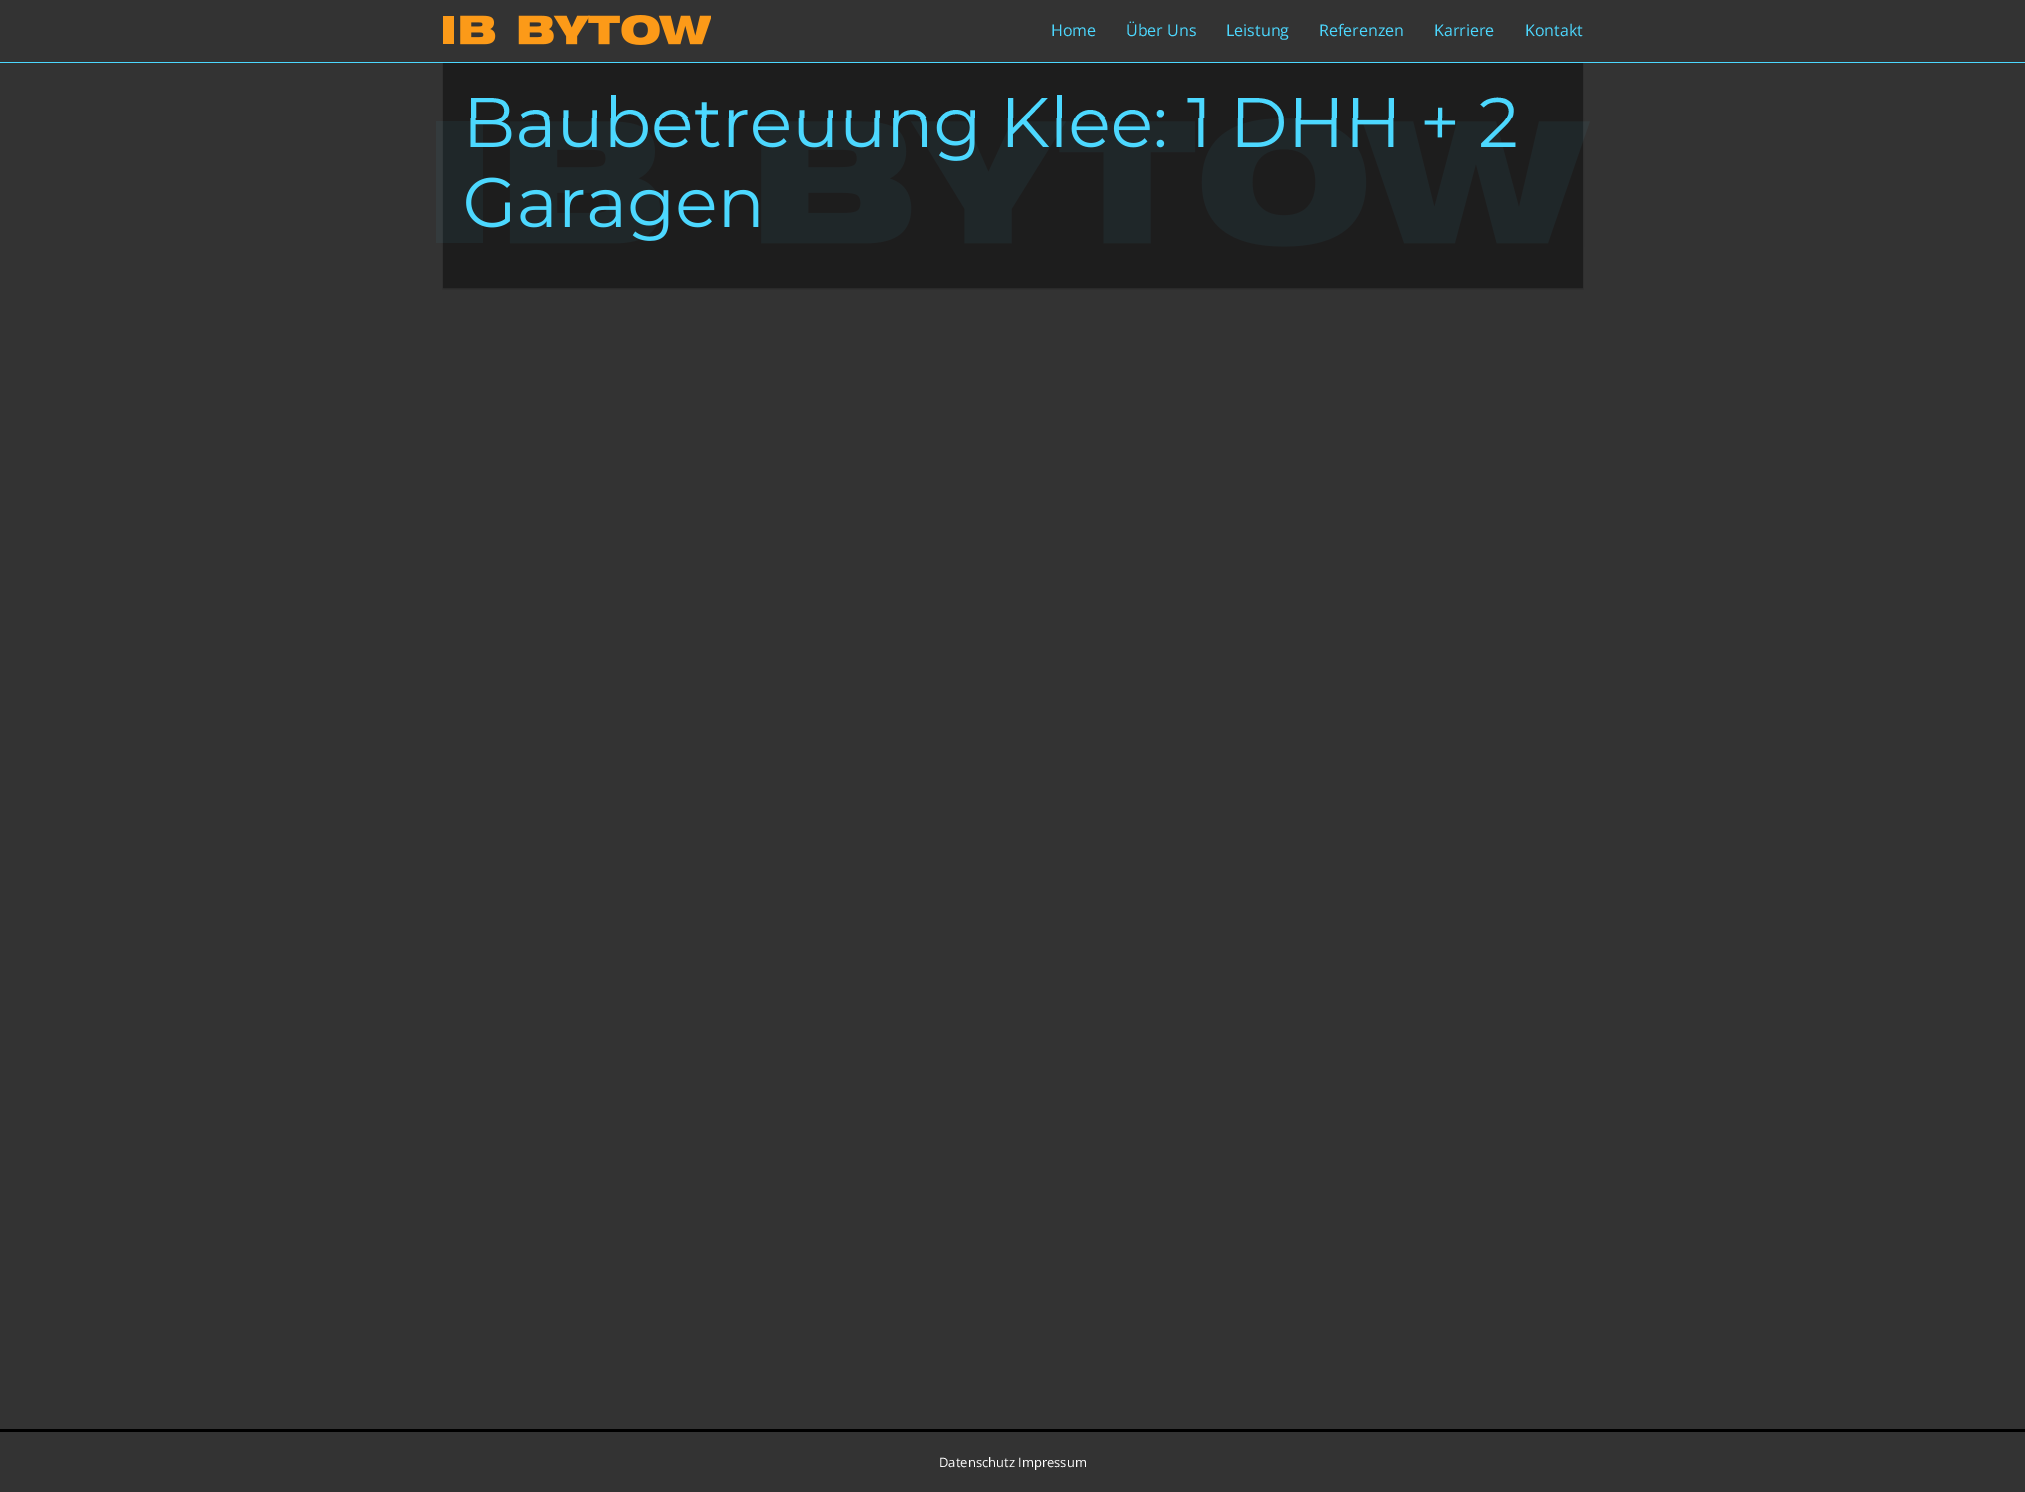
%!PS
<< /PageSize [2025 1492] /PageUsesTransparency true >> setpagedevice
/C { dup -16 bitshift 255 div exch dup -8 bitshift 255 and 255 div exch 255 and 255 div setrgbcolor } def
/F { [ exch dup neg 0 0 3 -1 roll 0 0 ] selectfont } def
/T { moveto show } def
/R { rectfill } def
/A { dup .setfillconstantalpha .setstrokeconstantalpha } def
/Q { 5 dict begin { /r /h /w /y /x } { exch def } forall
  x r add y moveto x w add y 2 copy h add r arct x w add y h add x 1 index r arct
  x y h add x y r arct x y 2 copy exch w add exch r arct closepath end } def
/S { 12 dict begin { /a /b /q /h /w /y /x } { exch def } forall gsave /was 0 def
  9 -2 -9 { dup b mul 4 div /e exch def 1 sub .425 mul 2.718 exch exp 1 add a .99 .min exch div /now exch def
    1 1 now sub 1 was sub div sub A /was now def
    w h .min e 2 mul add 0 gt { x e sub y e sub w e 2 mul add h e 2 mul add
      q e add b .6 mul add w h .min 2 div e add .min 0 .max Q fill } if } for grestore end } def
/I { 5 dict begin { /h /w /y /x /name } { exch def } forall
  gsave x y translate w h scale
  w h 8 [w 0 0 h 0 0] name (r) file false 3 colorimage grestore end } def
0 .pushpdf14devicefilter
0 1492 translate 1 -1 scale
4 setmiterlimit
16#333333 C
0 0 2025 1492 R
16#000000 C
443 64 1140 225 0 1 .25 S
16#4CD8FF C
0 62 2025 1 R
(1.rgb) 443 15 268 30 I
/OpenSans-Regular 16 F
(Home) 1051 36 T
(Über Uns) 1126 36 T
(Leistung) 1226 36 T
(Referenzen) 1319 36 T
(Karriere) 1434 36 T
(Kontakt) 1525 36 T
16#1D1D1D C
443 63 1140 225 R
/Montserrat-Regular 70 F
16#4CD8FF C
(Baubetreuung Klee: 1 DHH + 2) 463 147 T
(Garagen) 463 227 T
(2.rgb) 436 118 1154 129 I
16#000000 C
0 1429 2025 3 R
/OpenSans-Regular 13 F
16#FFFFFF C
(Datenschutz Impressum) 939 1467 T
.poppdf14devicefilter showpage
